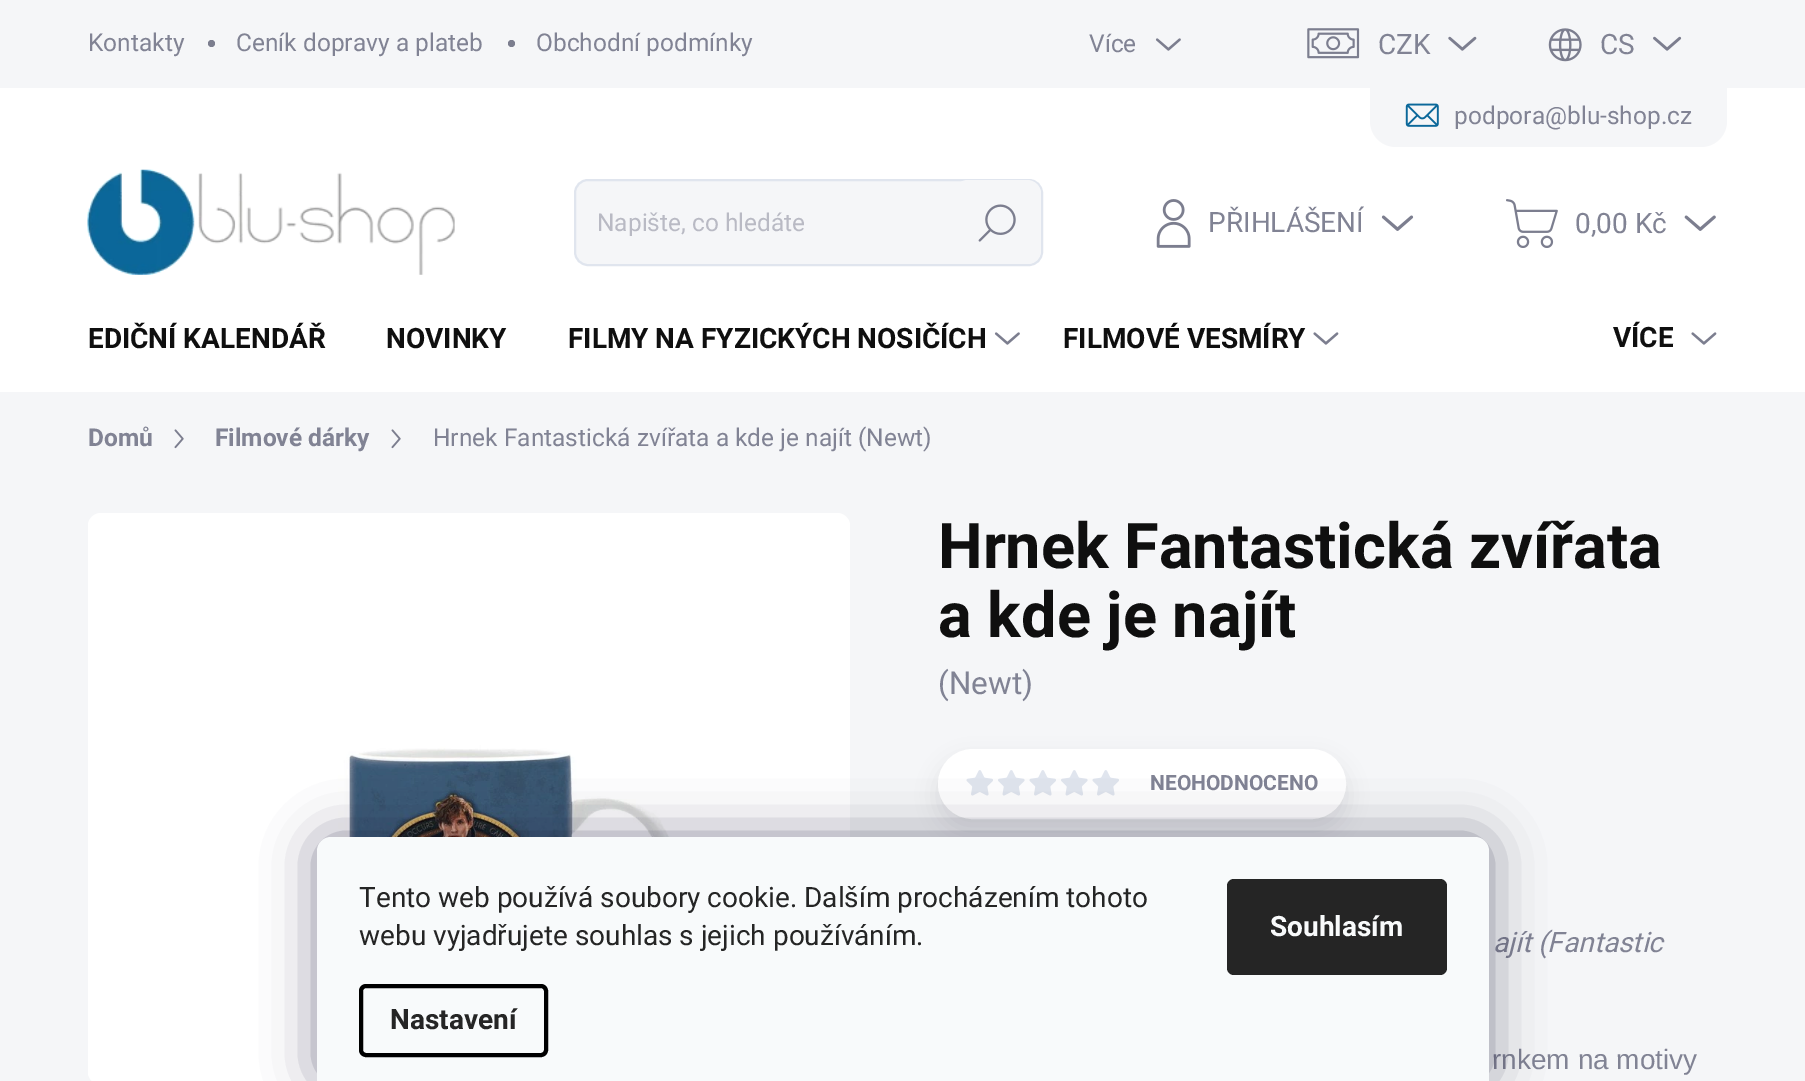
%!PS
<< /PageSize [1805 1081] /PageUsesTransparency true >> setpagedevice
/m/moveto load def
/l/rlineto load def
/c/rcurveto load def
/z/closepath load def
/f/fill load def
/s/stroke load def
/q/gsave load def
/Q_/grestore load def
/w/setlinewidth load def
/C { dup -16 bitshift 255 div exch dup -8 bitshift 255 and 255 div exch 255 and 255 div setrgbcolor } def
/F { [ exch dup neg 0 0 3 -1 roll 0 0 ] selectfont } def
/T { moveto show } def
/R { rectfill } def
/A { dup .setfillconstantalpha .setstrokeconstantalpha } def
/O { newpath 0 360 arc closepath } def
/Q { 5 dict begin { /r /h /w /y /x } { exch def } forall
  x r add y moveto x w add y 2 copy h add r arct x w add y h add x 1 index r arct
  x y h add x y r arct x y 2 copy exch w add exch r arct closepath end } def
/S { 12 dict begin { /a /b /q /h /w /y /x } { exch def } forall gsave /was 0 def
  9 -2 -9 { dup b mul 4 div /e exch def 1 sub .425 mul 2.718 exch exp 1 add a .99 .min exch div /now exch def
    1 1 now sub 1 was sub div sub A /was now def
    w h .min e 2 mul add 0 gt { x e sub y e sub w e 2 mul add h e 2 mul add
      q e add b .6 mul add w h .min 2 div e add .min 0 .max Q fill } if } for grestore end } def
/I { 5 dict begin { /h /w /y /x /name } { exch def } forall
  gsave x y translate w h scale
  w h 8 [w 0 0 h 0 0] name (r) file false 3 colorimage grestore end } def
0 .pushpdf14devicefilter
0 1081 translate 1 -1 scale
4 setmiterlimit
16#F5F6F8 C
0 0 1805 1081 R
/Roboto-Regular 24.5 F
16#818394 C
(Kontakty) 88 51 T
16#7C7E8F C
211.5 43.5 3.5 O f
16#818394 C
(Ceník dopravy a plateb) 236 51 T
16#7C7E8F C
511.5 43.5 3.5 O f
16#818394 C
(Obchodní podmínky) 536 51 T
(Více) 1089 52 T
(1.rgb) 1155 38 26 13 I
(2.rgb) 1307 28 53 31 I
/Roboto-Regular 28 F
(CZK) 1378 54 T
(3.rgb) 1448 36 29 15 I
(4.rgb) 1548 28 34 34 I
(CS) 1600 54 T
(5.rgb) 1653 36 29 15 I
16#FFFFFF C
0 88 1805 304 R
16#F5F6F8 C
1370 86 m 357 0 l 0 35 l 0 14.5 -11.5 26 -26 26 c -305 0 l -14.5 0 -26 -11.5 -26 -26 c z f
(6.rgb) 1405 103 34 24 I
/Roboto-Regular 24.5 F
16#818394 C
(podpora@blu-shop.cz) 1454 124 T
(7.rgb) 87 169 368 106 I
16#F5F6F8 C
575 180 467 85 13 Q q f Q_
16#E0E5EE C
2 w
s
16#B9BAC4 C
(Napište, co hledáte) 597 231 T
16#F5F6F8 C
954 180 87 84 14 Q f
(8.rgb) 978 204 38 38 I
(9.rgb) 1156 199 35 49 I
/Roboto-Regular 28 F
16#818394 C
(PŘIHLÁŠENÍ) 1208 232 T
(10.rgb) 1381 215 33 16 I
(11.rgb) 1506 199 52 49 I
(0,00 Kč) 1575 233 T
(12.rgb) 1684 215 32 16 I
/Roboto-Bold 28 F
16#0F0F0F C
(EDIČNÍ KALENDÁŘ) 88 348 T
(NOVINKY) 386 348 T
(FILMY NA FYZICKÝCH NOSIČÍCH) 568 348 T
(13.rgb) 994 332 26 13 I
(FILMOVÉ VESMÍRY) 1063 348 T
(14.rgb) 1313 332 26 13 I
(VÍCE) 1613 347 T
(14.rgb) 1691 332 26 13 I
/Roboto-Bold 24.5 F
16#818394 C
(Domů) 88 446 T
(15.rgb) 174 429 10 20 I
(Filmové dárky) 215 446 T
(15.rgb) 391 429 10 20 I
/Roboto-Regular 24.5 F
(Hrnek Fantastická zvířata a kde je najít \(Newt\)) 433 446 T
(16.rgb) 88 513 762 568 I
/Roboto-Bold 63 F
16#0F0F0F C
(Hrnek Fantastická zvířata) 938 568 T
(a kde je najít) 938 637 T
/Roboto-Regular 31.5 F
16#818394 C
(\(Newt\)) 938 694 T
16#000000 C
938 760 408 70 35 10.5 .08 S
16#FFFFFF C
939 750 406 68 34 Q q f Q_
s
(17.rgb) 966 770 27 26 I
(18.rgb) 998 770 27 26 I
(17.rgb) 1029 770 27 26 I
(18.rgb) 1061 770 27 26 I
(17.rgb) 1092 770 27 26 I
/Roboto-Bold 21 F
16#818394 C
(NEOHODNOCENO) 1150 790 T
/Roboto-Italic 28 F
(ajít \(Fantastic) 1493 952 T
/LiberationSans-Regular 28 F
(rnkem na motivy) 1492 1069 T
16#1B1939 C
317 837 1172 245 14 26 .5 S
16#F8FAFB C
331 837 m 1144 0 l 7.5 0 14 6.5 14 14 c 0 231 l -1172 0 l 0 -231 l 0 -7.5 6.5 -14 14 -14 c z f
/Roboto-Regular 28 F
16#252525 C
(Tento web používá soubory cookie. Dalším procházením tohoto) 359 907 T
(webu vyjadřujete souhlas s jejich používáním.) 359 945 T
16#000000 C
4 w
361 986 185 69 5 Q s
/Roboto-Bold 28 F
16#252525 C
(Nastavení) 390 1029 T
1227 879 220 96 7 Q f
16#F8FAFB C
(Souhlasím) 1270 936 T
.poppdf14devicefilter showpage
